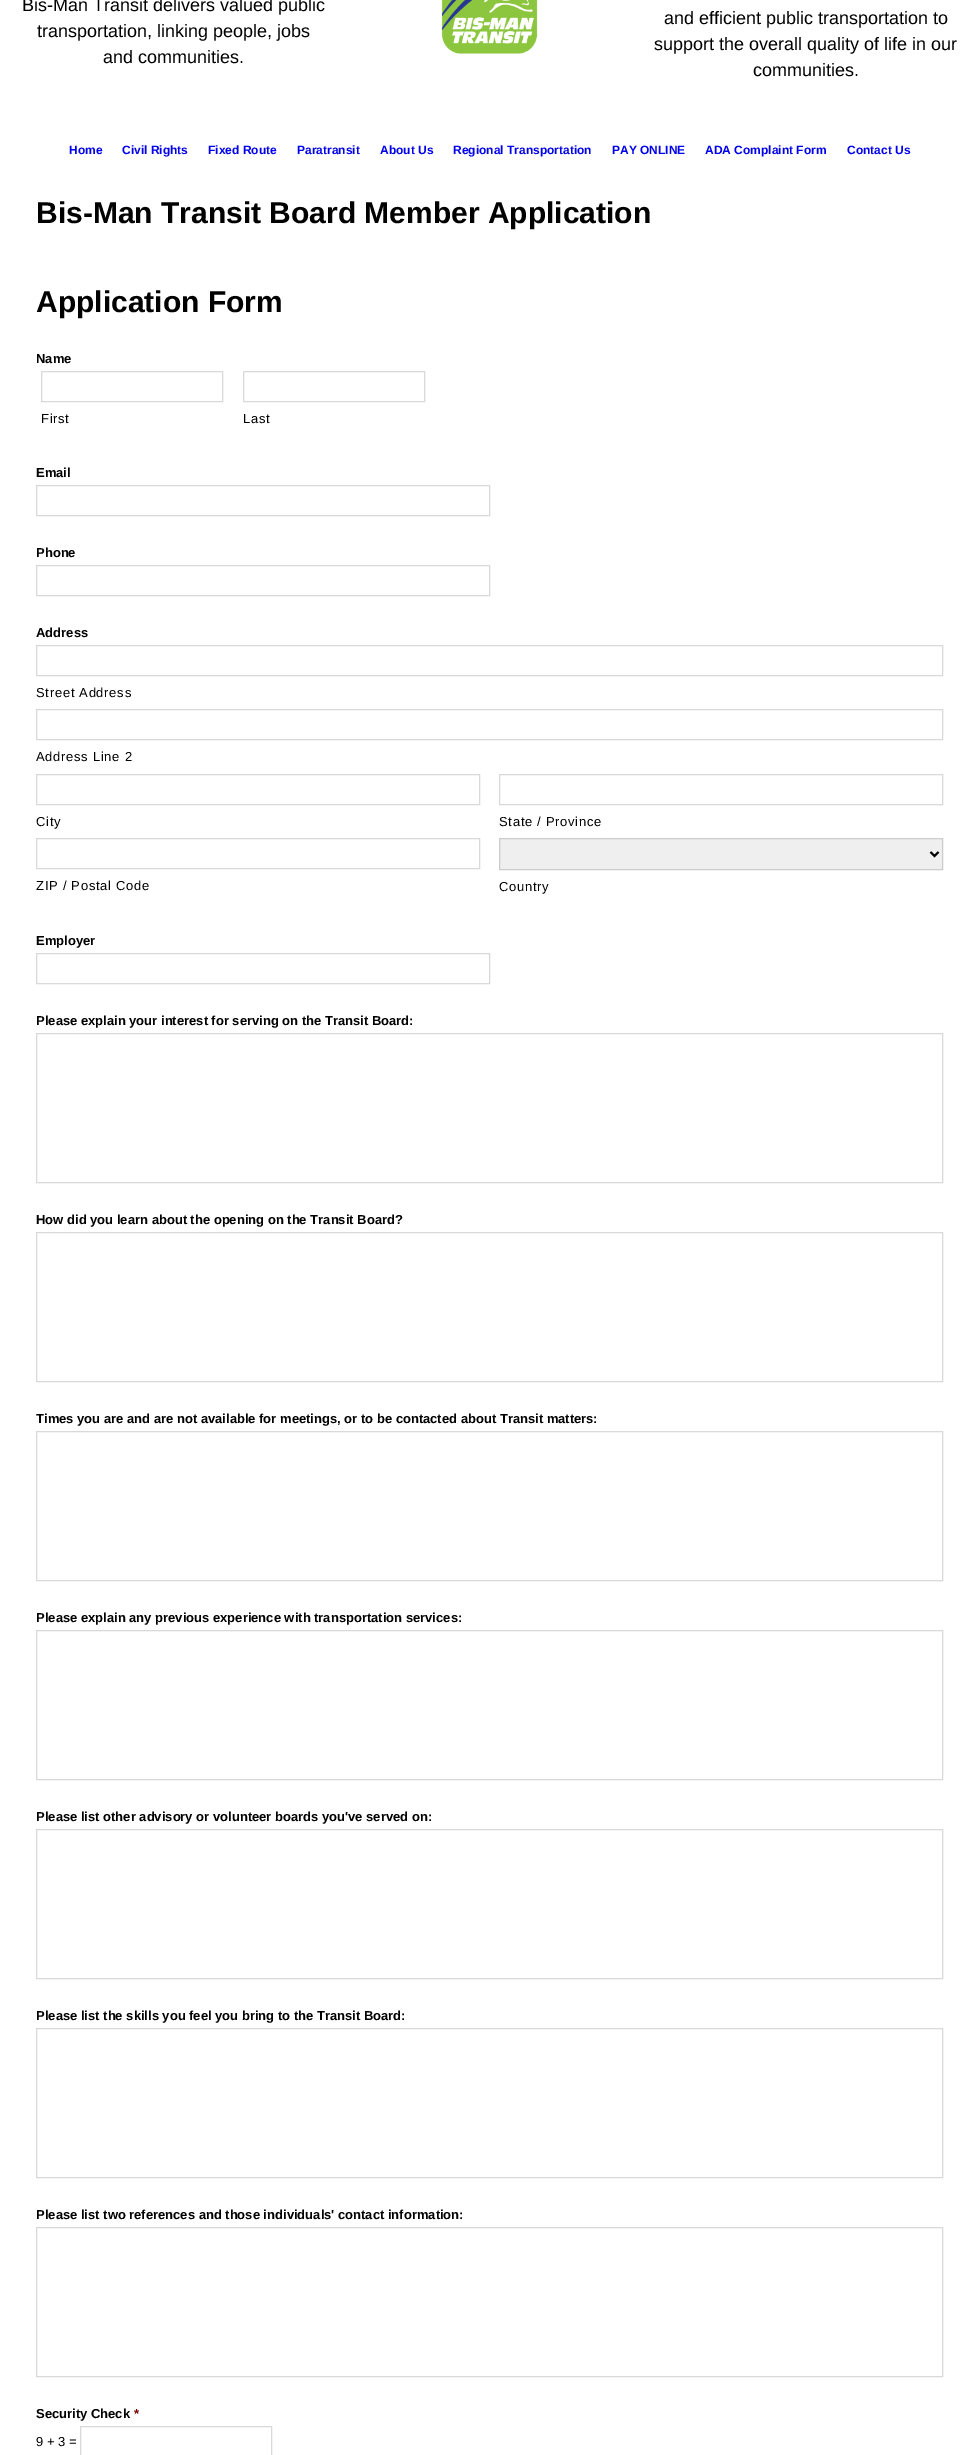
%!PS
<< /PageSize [979 2455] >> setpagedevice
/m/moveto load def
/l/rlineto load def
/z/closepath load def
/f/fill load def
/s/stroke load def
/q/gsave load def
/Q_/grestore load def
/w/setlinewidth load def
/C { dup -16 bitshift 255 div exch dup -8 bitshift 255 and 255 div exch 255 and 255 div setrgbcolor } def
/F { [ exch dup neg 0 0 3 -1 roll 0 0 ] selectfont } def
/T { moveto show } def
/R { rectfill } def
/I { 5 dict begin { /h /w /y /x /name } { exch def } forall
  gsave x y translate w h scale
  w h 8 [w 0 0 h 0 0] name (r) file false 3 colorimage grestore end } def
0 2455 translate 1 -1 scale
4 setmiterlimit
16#FFFFFF C
0 0 979 2455 R
/LiberationSans-Regular 18 F
16#000000 C
(Bis-Man Transit delivers valued public) 22 11 T
(transportation, linking people, jobs) 37 37 T
(and communities.) 103 63 T
(1.rgb) 441 0 97 54 I
(and efficient public transportation to) 664 24 T
(support the overall quality of life in our) 654 50 T
(communities.) 753 76 T
/LiberationSans-Bold 12 F
16#0000EE C
(Home) 69 154 T
(Civil Rights) 122 154 T
(Fixed Route) 208 154 T
(Paratransit) 297 154 T
(About Us) 380 154 T
(Regional Transportation) 453 154 T
(PAY ONLINE) 612 154 T
(ADA Complaint Form) 705 154 T
(Contact Us) 847 154 T
/LiberationSans-Bold 30 F
16#000000 C
(Bis-Man Transit Board Member Application) 36 223 T
(Application Form) 36 312 T
/LiberationSans-Bold 13 F
(Name) 36 363 T
16#D9D9D9 C
41.5 371.5 181 30 rectstroke
/LiberationSans-Regular 13 F
16#000000 C
41 423 m .7 0 (First) ashow
16#D9D9D9 C
243.5 371.5 181 30 rectstroke
16#000000 C
243 423 m .7 0 (Last) ashow
/LiberationSans-Bold 13 F
(Email) 36 477 T
16#D9D9D9 C
36.5 485.5 453 30 rectstroke
16#000000 C
(Phone) 36 557 T
16#D9D9D9 C
36.5 565.5 453 30 rectstroke
16#000000 C
(Address) 36 637 T
16#D9D9D9 C
36.5 645.5 906 30 rectstroke
/LiberationSans-Regular 13 F
16#000000 C
36 697 m .7 0 (Street Address) ashow
16#D9D9D9 C
36.5 709.5 906 30 rectstroke
16#000000 C
36 761 m .7 0 (Address Line 2) ashow
16#D9D9D9 C
36.5 774.5 443 30 rectstroke
16#000000 C
36 826 m .7 0 (City) ashow
16#D9D9D9 C
499.5 774.5 443 30 rectstroke
16#000000 C
499 826 m .7 0 (State / Province) ashow
16#D9D9D9 C
36.5 838.5 443 30 rectstroke
16#000000 C
36 890 m .7 0 (ZIP / Postal Code) ashow
16#EFEFEF C
499.5 838.5 m 443 0 l 0 31 l -443 0 l z q f Q_
16#CCCCCC C
s
16#000000 C
2 w
930.5 852 m 4 4 l 4 -4 l s
499 891 m .7 0 (Country) ashow
/LiberationSans-Bold 13 F
(Employer) 36 945 T
16#D9D9D9 C
1 w
36.5 953.5 453 30 rectstroke
16#000000 C
(Please explain your interest for serving on the Transit Board:) 36 1025 T
16#D9D9D9 C
36.5 1033.5 906 149 rectstroke
16#000000 C
(How did you learn about the opening on the Transit Board?) 36 1224 T
16#D9D9D9 C
36.5 1232.5 906 149 rectstroke
16#000000 C
(Times you are and are not available for meetings, or to be contacted about Transit matters:) 36 1423 T
16#D9D9D9 C
36.5 1431.5 906 149 rectstroke
16#000000 C
(Please explain any previous experience with transportation services:) 36 1622 T
16#D9D9D9 C
36.5 1630.5 906 149 rectstroke
16#000000 C
(Please list other advisory or volunteer boards you've served on:) 36 1821 T
16#D9D9D9 C
36.5 1829.5 906 149 rectstroke
16#000000 C
(Please list the skills you feel you bring to the Transit Board:) 36 2020 T
16#D9D9D9 C
36.5 2028.5 906 149 rectstroke
16#000000 C
(Please list two references and those individuals' contact information:) 36 2219 T
16#D9D9D9 C
36.5 2227.5 906 149 rectstroke
16#000000 C
(Security Check) 36 2418 T
16#790000 C
(*) 134 2418 T
/LiberationSans-Regular 13 F
16#000000 C
(9 + 3 =) 36 2446 T
16#D9D9D9 C
80.5 2426.5 191 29 rectstroke
showpage
